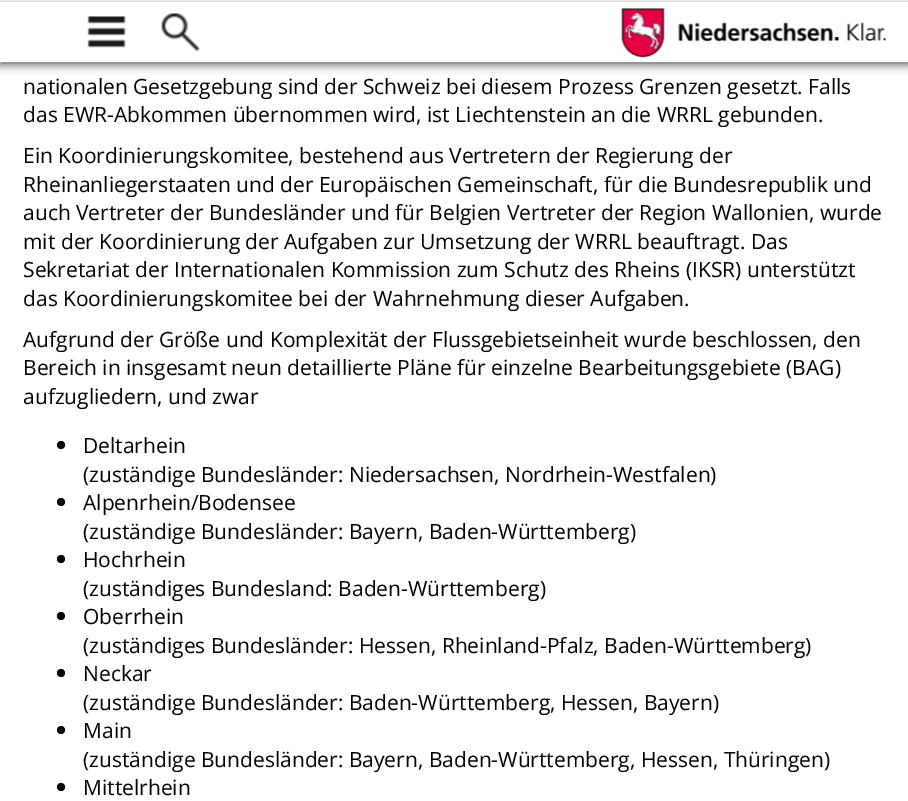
%!PS
<< /PageSize [908 801] /PageUsesTransparency true >> setpagedevice
/f/fill load def
/C { dup -16 bitshift 255 div exch dup -8 bitshift 255 and 255 div exch 255 and 255 div setrgbcolor } def
/F { [ exch dup neg 0 0 3 -1 roll 0 0 ] selectfont } def
/T { moveto show } def
/R { rectfill } def
/A { dup .setfillconstantalpha .setstrokeconstantalpha } def
/O { newpath 0 360 arc closepath } def
/Q { 5 dict begin { /r /h /w /y /x } { exch def } forall
  x r add y moveto x w add y 2 copy h add r arct x w add y h add x 1 index r arct
  x y h add x y r arct x y 2 copy exch w add exch r arct closepath end } def
/S { 12 dict begin { /a /b /q /h /w /y /x } { exch def } forall gsave /was 0 def
  9 -2 -9 { dup b mul 4 div /e exch def 1 sub .425 mul 2.718 exch exp 1 add a .99 .min exch div /now exch def
    1 1 now sub 1 was sub div sub A /was now def
    w h .min e 2 mul add 0 gt { x e sub y e sub w e 2 mul add h e 2 mul add
      q e add b .6 mul add w h .min 2 div e add .min 0 .max Q fill } if } for grestore end } def
/I { 5 dict begin { /h /w /y /x /name } { exch def } forall
  gsave x y translate w h scale
  w h 8 [w 0 0 h 0 0] name (r) file false 3 colorimage grestore end } def
0 .pushpdf14devicefilter
0 801 translate 1 -1 scale
4 setmiterlimit
16#FFFFFF C
0 0 908 801 R
16#666666 C
0 5 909 60 0 4.5 1 S
16#FFFFFF C
0 2 908 60 R
(1.rgb) 87 16 39 32 I
(2.rgb) 161 13 39 39 I
(3.rgb) 621 8 212 50 I
(4.rgb) 834 22 52 19 I
/OpenSans-Regular 21 F
16#000000 C
(nationalen Gesetzgebung sind der Schweiz bei diesem Prozess Grenzen gesetzt. Falls) 23 94 T
(das EWR-Abkommen übernommen wird, ist Liechtenstein an die WRRL gebunden.) 23 122 T
(Ein Koordinierungskomitee, bestehend aus Vertretern der Regierung der) 23 163 T
(Rheinanliegerstaaten und der Europäischen Gemeinschaft, für die Bundesrepublik und) 23 192 T
(auch Vertreter der Bundesländer und für Belgien Vertreter der Region Wallonien, wurde) 23 220 T
(mit der Koordinierung der Aufgaben zur Umsetzung der WRRL beauftragt. Das) 23 249 T
(Sekretariat der Internationalen Kommission zum Schutz des Rheins \(IKSR\) unterstützt) 23 277 T
(das Koordinierungskomitee bei der Wahrnehmung dieser Aufgaben.) 23 306 T
(Aufgrund der Größe und Komplexität der Flussgebietseinheit wurde beschlossen, den) 23 347 T
(Bereich in insgesamt neun detaillierte Pläne für einzelne Bearbeitungsgebiete \(BAG\)) 23 375 T
(aufzugliedern, und zwar) 23 404 T
61 445 4 O f
(Deltarhein) 83 453 T
(\(zuständige Bundesländer: Niedersachsen, Nordrhein-Westfalen\)) 83 482 T
61 502 4 O f
(Alpenrhein/Bodensee) 83 510 T
(\(zuständige Bundesländer: Bayern, Baden-Württemberg\)) 83 539 T
61 559 4 O f
(Hochrhein) 83 567 T
(\(zuständiges Bundesland: Baden-Württemberg\)) 83 596 T
61 616 4 O f
(Oberrhein) 83 624 T
(\(zuständiges Bundesländer: Hessen, Rheinland-Pfalz, Baden-Württemberg\)) 83 653 T
61 673 4 O f
(Neckar) 83 681 T
(\(zuständige Bundesländer: Baden-Württemberg, Hessen, Bayern\)) 83 710 T
61 730 4 O f
(Main) 83 738 T
(\(zuständige Bundesländer: Bayern, Baden-Württemberg, Hessen, Thüringen\)) 83 767 T
61 787 4 O f
(Mittelrhein) 83 795 T
.poppdf14devicefilter showpage
